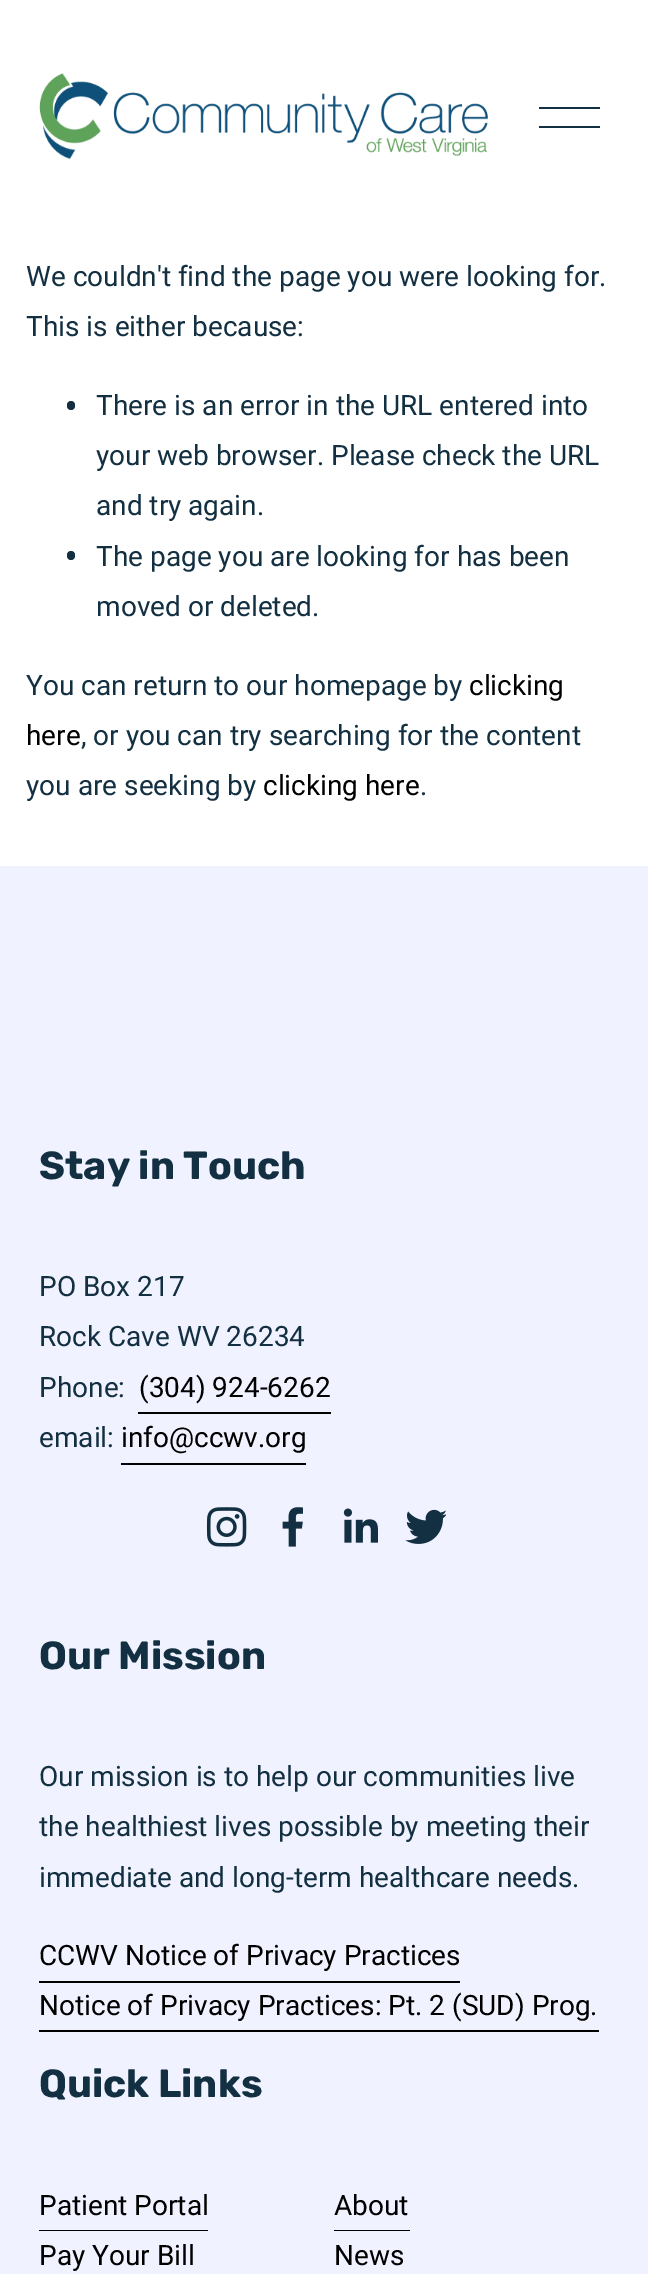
%!PS
<< /PageSize [648 2274] >> setpagedevice
/f/fill load def
/C { dup -16 bitshift 255 div exch dup -8 bitshift 255 and 255 div exch 255 and 255 div setrgbcolor } def
/F { [ exch dup neg 0 0 3 -1 roll 0 0 ] selectfont } def
/T { moveto show } def
/R { rectfill } def
/Q { 5 dict begin { /r /h /w /y /x } { exch def } forall
  x r add y moveto x w add y 2 copy h add r arct x w add y h add x 1 index r arct
  x y h add x y r arct x y 2 copy exch w add exch r arct closepath end } def
/I { 5 dict begin { /h /w /y /x /name } { exch def } forall
  gsave x y translate w h scale
  w h 8 [w 0 0 h 0 0] name (r) file false 3 colorimage grestore end } def
0 2274 translate 1 -1 scale
4 setmiterlimit
16#FFFFFF C
0 0 648 2274 R
(1.rgb) 39 73 449 87 I
16#133042 C
539 107 61 2 R
539 126 61 2 R
/Roboto-Regular 28 F
(We couldn't find the page you were looking for.) 26 286 T
(This is either because:) 26 336 T
67 401 8 9 4 Q f
(There is an error in the URL entered into) 96 415 T
(your web browser. Please check the URL) 96 465 T
(and try again.) 96 515 T
67 551 8 9 4 Q f
(The page you are looking for has been) 96 566 T
(moved or deleted.) 96 616 T
(You can return to our homepage by) 26 695 T
16#000000 C
(clicking) 469 695 T
(here) 26 745 T
16#133042 C
(, or you can try searching for the content) 81 745 T
(you are seeking by) 26 795 T
16#000000 C
(clicking here) 263 795 T
16#133042 C
(.) 420 795 T
16#F1F2FF C
0 866 648 1408 R
/Rubik-Bold 39.25 F
16#133042 C
(Stay in Touch) 39 1179 T
/Roboto-Regular 28 F
(PO Box 217) 39 1296 T
(Rock Cave WV 26234) 39 1346 T
(Phone:) 39 1397 T
16#000000 C
138 1412 193 2 R
(\(304\) 924-6262) 139 1397 T
16#133042 C
(email:) 39 1447 T
16#000000 C
121 1463 185 2 R
(info@ccwv.org) 121 1447 T
(2.rgb) 206 1507 41 40 I
(3.rgb) 282 1507 21 40 I
(4.rgb) 343 1508 35 35 I
(5.rgb) 405 1509 41 35 I
/Rubik-Bold 39.25 F
16#133042 C
(Our Mission) 39 1669 T
/Roboto-Regular 28 F
(Our mission is to help our communities live) 39 1786 T
(the healthiest lives possible by meeting their) 39 1836 T
(immediate and long-term healthcare needs.) 39 1887 T
16#000000 C
39 1981 421 2 R
(CCWV Notice of Privacy Practices) 39 1965 T
39 2030 560 2 R
(Notice of Privacy Practices: Pt. 2 \(SUD\) Prog.) 39 2015 T
/Rubik-Bold 39.25 F
16#133042 C
(Quick Links) 39 2097 T
16#000000 C
39 2230 169 1 R
/Roboto-Regular 28 F
(Patient Portal) 39 2215 T
(Pay Your Bill) 39 2265 T
334 2230 76 1 R
(About) 334 2215 T
(News) 334 2265 T
showpage
